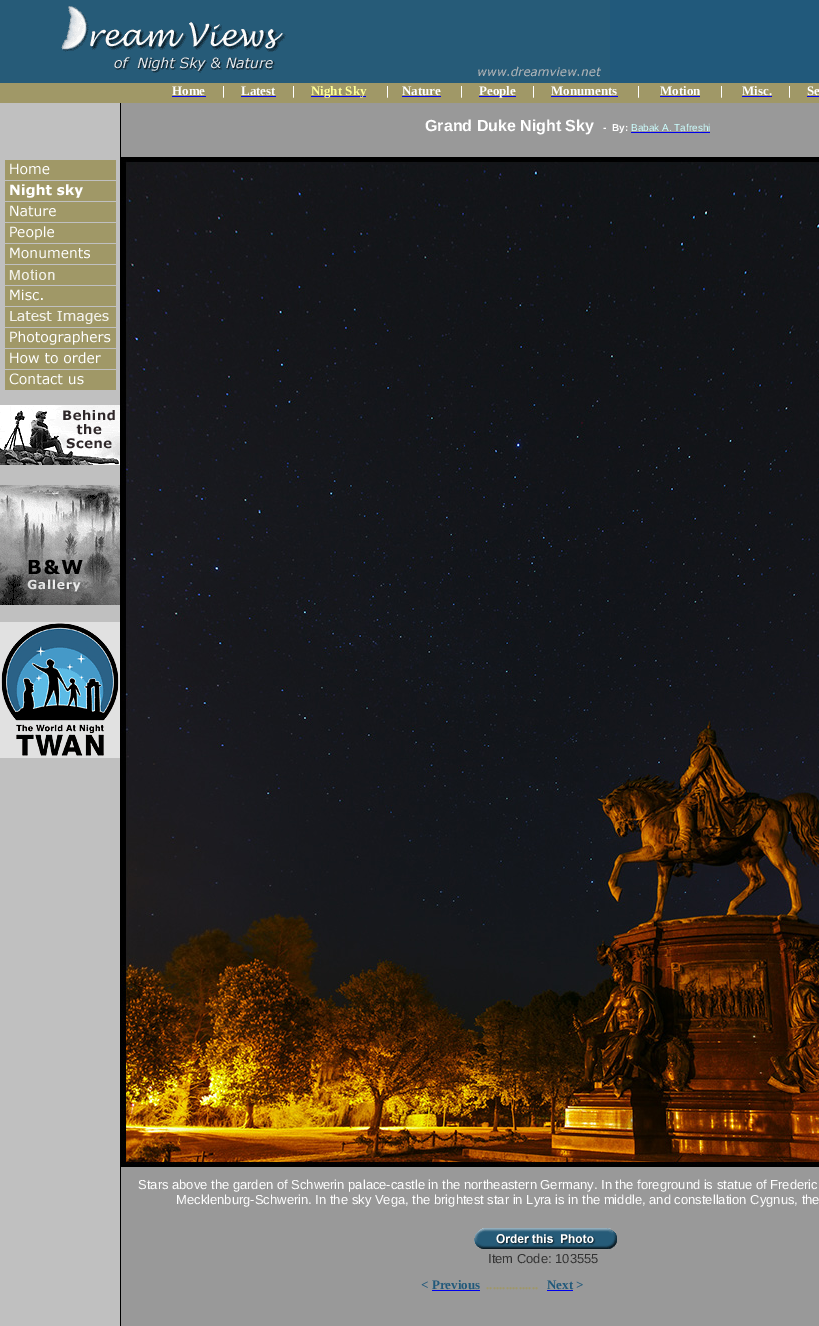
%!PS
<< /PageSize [819 1326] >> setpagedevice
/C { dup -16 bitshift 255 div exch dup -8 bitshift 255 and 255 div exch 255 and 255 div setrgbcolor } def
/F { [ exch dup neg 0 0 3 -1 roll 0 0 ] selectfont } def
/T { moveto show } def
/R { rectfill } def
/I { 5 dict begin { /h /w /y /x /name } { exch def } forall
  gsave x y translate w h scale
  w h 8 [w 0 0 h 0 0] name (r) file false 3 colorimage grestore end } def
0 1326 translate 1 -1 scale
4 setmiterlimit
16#999999 C
0 0 819 1326 R
16#21597B C
610 0 209 83 R
(1.rgb) 0 0 610 83 I
16#A09867 C
0 83 819 20 R
/LiberationSerif-Bold 13 F
16#FFFFFF C
(Home) 172 95 T
16#0000EE C
172 96 34 1 R
16#FFFFFF C
(|) 222 95 T
(Latest) 241 95 T
16#0000EE C
241 96 35 1 R
16#FFFFFF C
(|) 292 95 T
16#0000EE C
311 96 55 1 R
16#FFFF99 C
(Night Sky) 311 95 T
16#FFFFFF C
(|) 386 95 T
(Nature) 402 95 T
16#0000EE C
402 96 39 1 R
16#FFFFFF C
(|) 460 95 T
16#0000EE C
479 96 37 1 R
16#FFFFFF C
(People) 479 95 T
(|) 532 95 T
(Monuments) 551 95 T
16#0000EE C
551 96 67 1 R
16#FFFFFF C
(|) 637 95 T
(Motion) 660 95 T
16#0000EE C
660 96 40 1 R
16#FFFFFF C
(|) 720 95 T
(Misc.) 742 95 T
16#0000EE C
742 96 30 1 R
16#FFFFFF C
(|) 788 95 T
(Se) 807 95 T
16#0000EE C
807 96 12 1 R
16#C0C0C0 C
0 103 120 1223 R
(2.rgb) 5 160 111 20 I
(3.rgb) 5 181 111 20 I
(4.rgb) 5 202 111 20 I
(5.rgb) 5 223 111 20 I
(6.rgb) 5 244 111 20 I
(7.rgb) 5 265 111 20 I
(8.rgb) 5 286 111 20 I
(9.rgb) 5 307 111 20 I
(10.rgb) 5 328 111 20 I
(11.rgb) 5 349 111 20 I
(12.rgb) 5 370 111 20 I
(13.rgb) 0 405 120 60 I
(14.rgb) 0 485 120 120 I
(15.rgb) 0 622 120 136 I
16#000000 C
120 103 1 1223 R
/LiberationSans-Bold 16 F
16#FFFFFF C
(Grand Duke Night Sky) 425 131 T
/LiberationSans-Bold 10 F
(-  By:) 603 131 T
/LiberationSans-Regular 10 F
16#CCFFFF C
(Babak A. Tafreshi) 631 131 T
16#0000EE C
631 132 79 1 R
(16.rgb) 121 157 698 1010 I
/LiberationSans-Regular 13 F
16#FFFFFF C
(Stars above the garden of Schwerin palace-castle in the northeastern Germany. In the foreground is statue of Frederic) 138 1189 T
(Mecklenburg-Schwerin. In the sky Vega, the brightest star in Lyra is in the middle, and constellation Cygnus, the) 176 1204 T
(17.rgb) 474 1228 144 22 I
16#333333 C
(Item Code: 103555) 488 1263 T
/LiberationSerif-Bold 13 F
16#21597B C
(< Previous) 421 1289 T
16#A09867 C
(................) 486 1289 T
16#0000EE C
432 1290 48 1 R
16#21597B C
(Next >) 547 1289 T
16#0000EE C
547 1290 26 1 R
showpage
